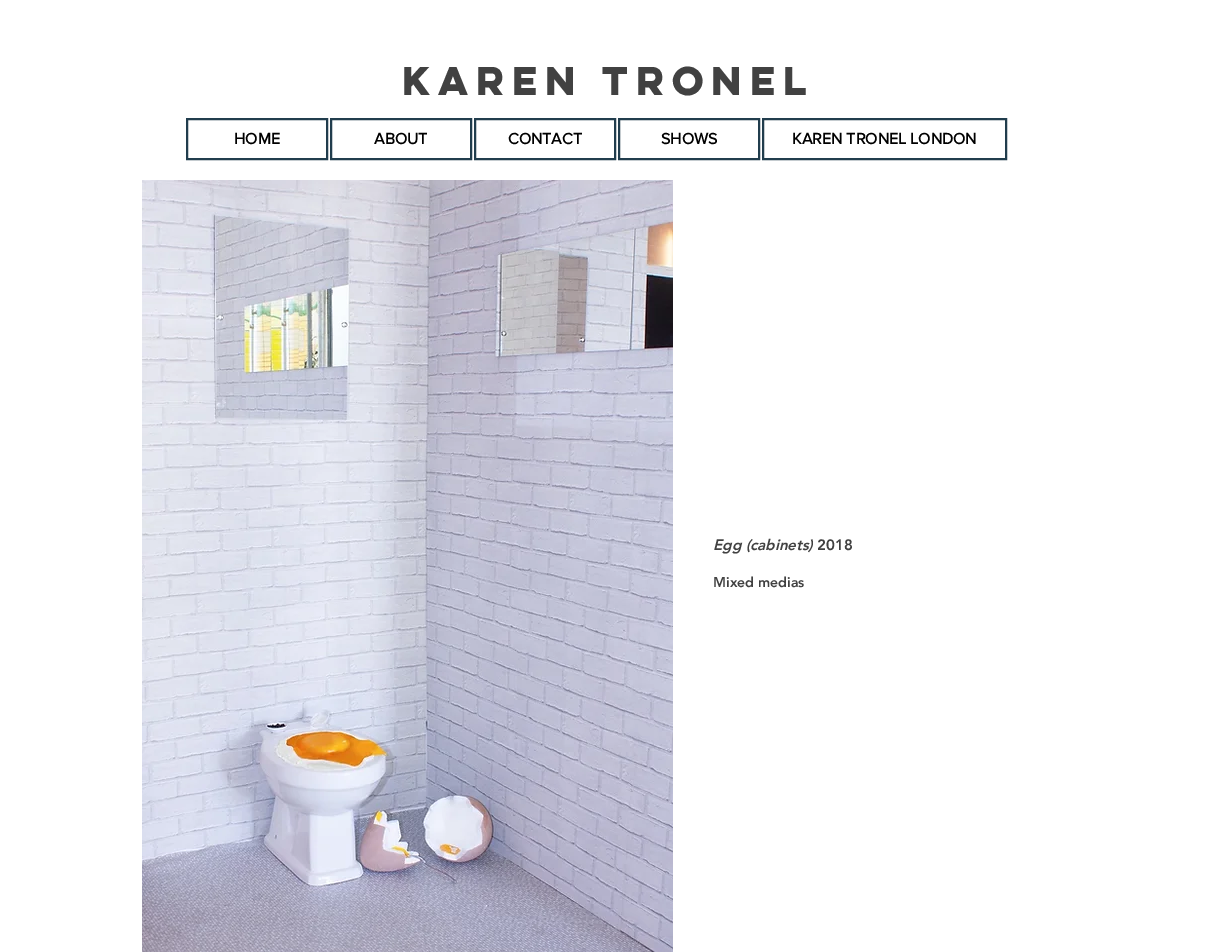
%!PS
<< /PageSize [1216 952] >> setpagedevice
/w/setlinewidth load def
/C { dup -16 bitshift 255 div exch dup -8 bitshift 255 and 255 div exch 255 and 255 div setrgbcolor } def
/F { [ exch dup neg 0 0 3 -1 roll 0 0 ] selectfont } def
/T { moveto show } def
/R { rectfill } def
/I { 5 dict begin { /h /w /y /x /name } { exch def } forall
  gsave x y translate w h scale
  w h 8 [w 0 0 h 0 0] name (r) file false 3 colorimage grestore end } def
0 952 translate 1 -1 scale
4 setmiterlimit
16#FFFFFF C
0 0 1216 952 R
/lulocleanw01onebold-Bold 36 F
16#414141 C
(Karen Tronel) 402 95 T
16#213D4D C
2 w
187 119 140 40 rectstroke
/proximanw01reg-Bold 16 F
16#000000 C
(HOME) 234 144 T
16#213D4D C
331 119 140 40 rectstroke
16#000000 C
(ABOUT) 374 144 T
16#213D4D C
475 119 140 40 rectstroke
16#000000 C
(CONTACT) 508 144 T
16#213D4D C
619 119 140 40 rectstroke
16#000000 C
(SHOWS) 661 144 T
16#213D4D C
763 119 243 40 rectstroke
16#000000 C
(KAREN TRONEL LONDON) 792 144 T
(1.rgb) 142 180 531 772 I
/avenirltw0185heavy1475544-BlackItalic 15 F
16#414141 C
(Egg \(cabinets\)) 713 550 T
/avenirltw0185heavy1475544-Black 15 F
(2018) 817 550 T
/avenirltw0185heavy1475544-Black 14 F
(Mixed medias) 713 587 T
showpage
